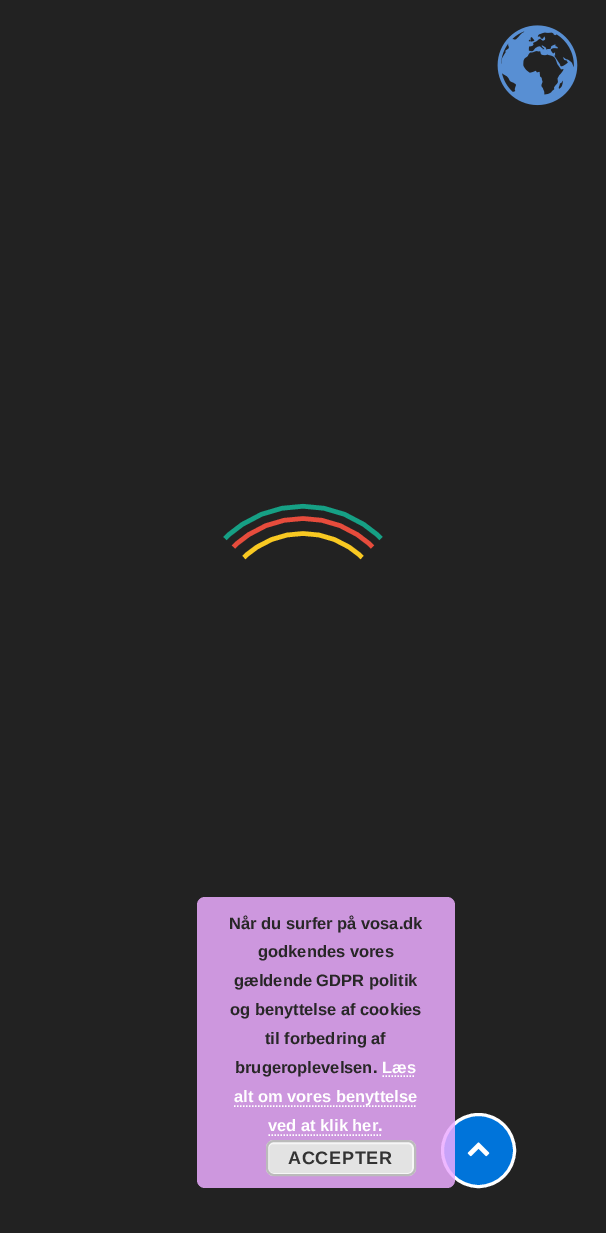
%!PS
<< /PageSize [606 1233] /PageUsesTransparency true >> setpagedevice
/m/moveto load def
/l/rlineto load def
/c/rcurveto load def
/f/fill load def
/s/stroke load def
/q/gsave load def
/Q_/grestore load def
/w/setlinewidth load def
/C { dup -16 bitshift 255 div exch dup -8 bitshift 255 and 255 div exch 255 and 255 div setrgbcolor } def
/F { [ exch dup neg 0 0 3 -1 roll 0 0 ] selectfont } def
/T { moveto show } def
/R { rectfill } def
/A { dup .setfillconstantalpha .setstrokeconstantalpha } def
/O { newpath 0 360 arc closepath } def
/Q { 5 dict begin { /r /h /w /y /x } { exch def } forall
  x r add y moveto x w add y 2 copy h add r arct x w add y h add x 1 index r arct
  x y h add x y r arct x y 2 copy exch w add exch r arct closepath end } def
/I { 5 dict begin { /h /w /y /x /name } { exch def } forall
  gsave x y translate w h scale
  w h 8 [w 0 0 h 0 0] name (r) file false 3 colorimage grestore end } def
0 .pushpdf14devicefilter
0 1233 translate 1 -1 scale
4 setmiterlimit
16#222222 C
0 0 606 1233 R
(1.rgb) 497 25 81 81 I
16#16A085 C
4.5 w
225 538.5 m 43 -43 113 -43 156 0 c s
16#E74C3C C
233.5 547 m 38 -38 101 -38 139 0 c s
16#F9C922 C
244 557.5 m 32.5 -32 85.5 -32 118 0 c s
16#0074DA C
478.5 1150.5 36 O q f Q_
16#FFFFFF C
3 w
s
0.85 A
16#EBABFF C
197 897 258 291 8 Q f
/LiberationSans-Bold 16.5 F
1 A
16#282727 C
(Når du surfer på vosa.dk) 229 929 T
(godkendes vores) 258 957 T
(gældende GDPR politik) 234 986 T
(og benyttelse af cookies) 230 1015 T
(til forbedring af) 265 1044 T
(brugeroplevelsen.) 235 1073 T
16#FFFFFF C
(Læs) 382 1073 T
1.5 w
[1.5 1.5] 0 setdash
382.5 1076 m 33 0 l s
234 1106 m 183 0 l s
(alt om vores benyttelse) 234 1102 T
(ved at klik her.) 268 1131 T
268.5 1135 m 114 0 l s
16#E3E3E3 C
266 1140 150 36 8 Q f
16#F6F6F6 C
2 w
[] 0 setdash
268 1143 145 31 5 Q s
16#BBBBBB C
267 1141 148 34 7 Q s
/LiberationSans-Bold 18 F
16#333333 C
288 1164 m .75 0 (ACCEPTER) ashow
(2.rgb) 467 1142 23 15 I
.poppdf14devicefilter showpage
